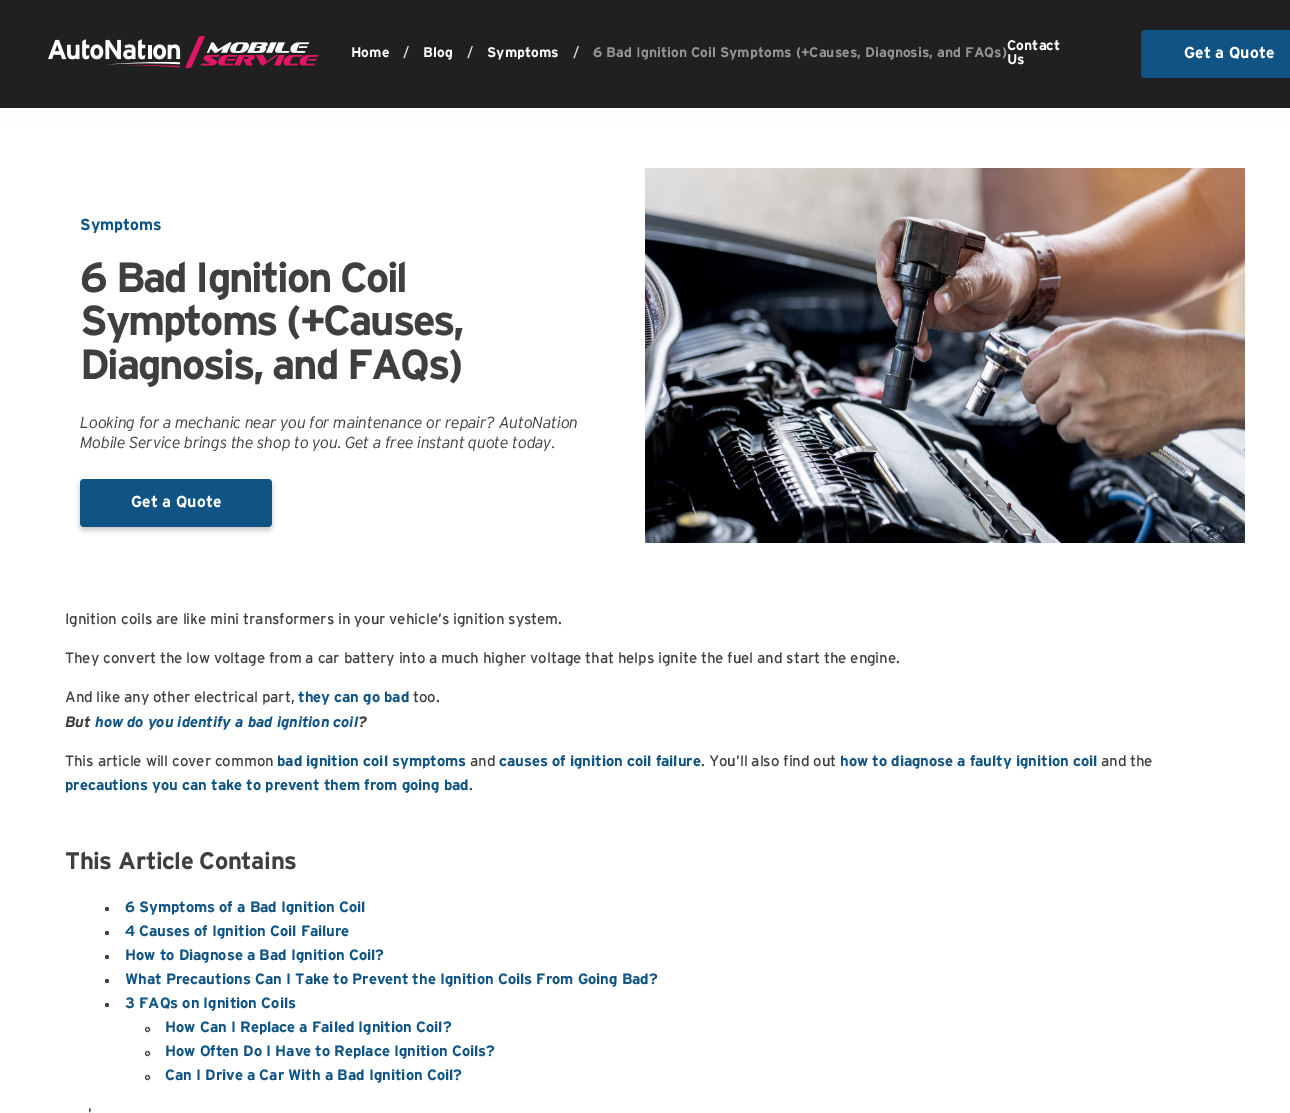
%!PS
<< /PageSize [1290 1113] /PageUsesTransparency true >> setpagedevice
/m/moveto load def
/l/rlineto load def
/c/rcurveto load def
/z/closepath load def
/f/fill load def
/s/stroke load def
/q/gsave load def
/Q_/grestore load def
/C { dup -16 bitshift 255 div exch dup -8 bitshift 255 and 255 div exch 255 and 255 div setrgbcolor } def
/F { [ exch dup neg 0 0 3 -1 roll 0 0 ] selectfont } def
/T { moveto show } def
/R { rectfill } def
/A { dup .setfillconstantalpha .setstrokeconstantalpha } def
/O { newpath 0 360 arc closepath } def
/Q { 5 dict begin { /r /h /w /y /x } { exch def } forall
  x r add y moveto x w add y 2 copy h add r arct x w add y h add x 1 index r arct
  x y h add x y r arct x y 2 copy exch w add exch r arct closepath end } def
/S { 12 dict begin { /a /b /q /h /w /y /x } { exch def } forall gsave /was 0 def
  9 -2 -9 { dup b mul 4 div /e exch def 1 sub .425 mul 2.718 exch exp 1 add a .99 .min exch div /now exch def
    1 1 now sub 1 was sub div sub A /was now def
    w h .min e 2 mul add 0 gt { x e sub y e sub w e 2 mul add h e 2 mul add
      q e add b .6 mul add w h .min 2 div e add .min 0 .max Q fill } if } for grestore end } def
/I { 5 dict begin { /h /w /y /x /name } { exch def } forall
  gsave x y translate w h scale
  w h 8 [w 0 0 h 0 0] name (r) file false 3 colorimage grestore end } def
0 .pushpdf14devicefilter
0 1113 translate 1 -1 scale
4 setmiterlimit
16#FFFFFF C
0 0 1290 1113 R
q 0 108 m 1290 0 l 0 16 l -1290 0 l z clip newpath
<< /ShadingType 2 /ColorSpace /DeviceRGB /Coords [645 0 645 180] /Extend [true true] /Function << /FunctionType 2 /Domain [0 1] /C0 [.969 .976 .988] /C1 [1 1 1] /N 1 >> >> shfill Q_
16#202020 C
0 0 1290 108 R
(1.rgb) 48 36 271 32 I
/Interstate-Bold 14 F
16#FFFFFF C
(Home) 351 57 T
/Interstate-Regular 14 F
16#DEDEDE C
(/) 403 57 T
/Interstate-Bold 14 F
16#FFFFFF C
(Blog) 423 57 T
/Interstate-Regular 14 F
16#DEDEDE C
(/) 467 57 T
/Interstate-Bold 14 F
16#FFFFFF C
(Symptoms) 487 57 T
/Interstate-Regular 14 F
16#DEDEDE C
(/) 573 57 T
/Interstate-Bold 14 F
16#949494 C
(6 Bad Ignition Coil Symptoms \(+Causes, Diagnosis, and FAQs\)) 593 57 T
16#FFFFFF C
(Contact) 1007 50 T
(Us) 1007 64 T
16#0F5485 C
1145 30 m 145 0 l 0 48 l -145 0 l -2 0 -4 -2 -4 -4 c 0 -40 l 0 -2 2 -4 4 -4 c z f
/Interstate-Bold 16 F
16#FFFFFF C
(Get a Quote) 1184 58 T
16#0F5485 C
(Symptoms) 80 230 T
/Interstate-Bold 42 F
16#3F3F3F C
80 292 m -2.25 0 (6 Bad Ignition Coil) ashow
80 335 m -2.25 0 (Symptoms \(+Causes,) ashow
80 379 m -2.25 0 (Diagnosis, and FAQs\)) ashow
/Interstate-LightItalic 16 F
80 428 m -.3 0 (Looking for a mechanic near you for maintenance or repair? AutoNation) ashow
80 448 m -.3 0 (Mobile Service brings the shop to you. Get a free instant quote today.) ashow
16#000000 C
80 482 192 48 4 3 .24 S
16#0F5485 C
80 479 192 48 4 Q f
/Interstate-Bold 16 F
16#FFFFFF C
(Get a Quote) 131 507 T
(2.rgb) 645 168 600 375 I
/Interstate-Regular 15 F
16#3F3F3F C
65 624 m -.1 0 (Ignition coils are like mini transformers in your vehicle’s ignition system.) ashow
65 663 m -.1 0 (They convert the low voltage from a car battery into a much higher voltage that helps ignite the fuel and start the engine.) ashow
65 702 m -.1 0 (And like any other electrical part,) ashow
/Interstate-Bold 15 F
16#0F5485 C
298 702 m -.1 0 (they can go bad) ashow
/Interstate-Regular 15 F
16#3F3F3F C
413 702 m -.1 0 (too.) ashow
/Interstate-BoldItalic 15 F
65 727 m -.1 0 (But) ashow
16#0F5485 C
95 727 m -.1 0 (how do you identify a bad ignition coil) ashow
16#3F3F3F C
358 727 m -.1 0 (?) ashow
/Interstate-Regular 15 F
65 766 m -.1 0 (This article will cover common) ashow
/Interstate-Bold 15 F
16#0F5485 C
277 766 m -.1 0 (bad ignition coil symptoms) ashow
/Interstate-Regular 15 F
16#3F3F3F C
470 766 m -.1 0 (and) ashow
/Interstate-Bold 15 F
16#0F5485 C
499 766 m -.1 0 (causes of ignition coil failure) ashow
/Interstate-Regular 15 F
16#3F3F3F C
701 766 m -.1 0 (. You’ll also find out) ashow
/Interstate-Bold 15 F
16#0F5485 C
840 766 m -.1 0 (how to diagnose a faulty ignition coil) ashow
/Interstate-Regular 15 F
16#3F3F3F C
1101 766 m -.1 0 (and the) ashow
/Interstate-Bold 15 F
16#0F5485 C
65 790 m -.1 0 (precautions you can take to prevent them from going bad) ashow
/Interstate-Regular 15 F
16#3F3F3F C
469 790 m -.1 0 (.) ashow
/Interstate-Bold 24 F
65 869 m -.5 0 (This Article Contains) ashow
107 909 2 O f
/Interstate-Bold 15 F
16#0F5485 C
125 912 m -.1 0 (6 Symptoms of a Bad Ignition Coil) ashow
16#3F3F3F C
107 933 2 O f
16#0F5485 C
125 936 m -.1 0 (4 Causes of Ignition Coil Failure) ashow
16#3F3F3F C
107 957 2 O f
16#0F5485 C
125 960 m -.1 0 (How to Diagnose a Bad Ignition Coil?) ashow
16#3F3F3F C
107 981 2 O f
16#0F5485 C
125 984 m -.1 0 (What Precautions Can I Take to Prevent the Ignition Coils From Going Bad?) ashow
16#3F3F3F C
107 1005 2 O f
16#0F5485 C
125 1008 m -.1 0 (3 FAQs on Ignition Coils) ashow
16#3F3F3F C
147.5 1029.5 2 O s
16#0F5485 C
165 1032 m -.1 0 (How Can I Replace a Failed Ignition Coil?) ashow
16#3F3F3F C
147.5 1053.5 2 O s
16#0F5485 C
165 1056 m -.1 0 (How Often Do I Have to Replace Ignition Coils?) ashow
16#3F3F3F C
147.5 1077.5 2 O s
16#0F5485 C
165 1080 m -.1 0 (Can I Drive a Car With a Bad Ignition Coil?) ashow
/Interstate-Regular 15 F
16#3F3F3F C
88 1119 m -.1 0 (’) ashow
.poppdf14devicefilter showpage
